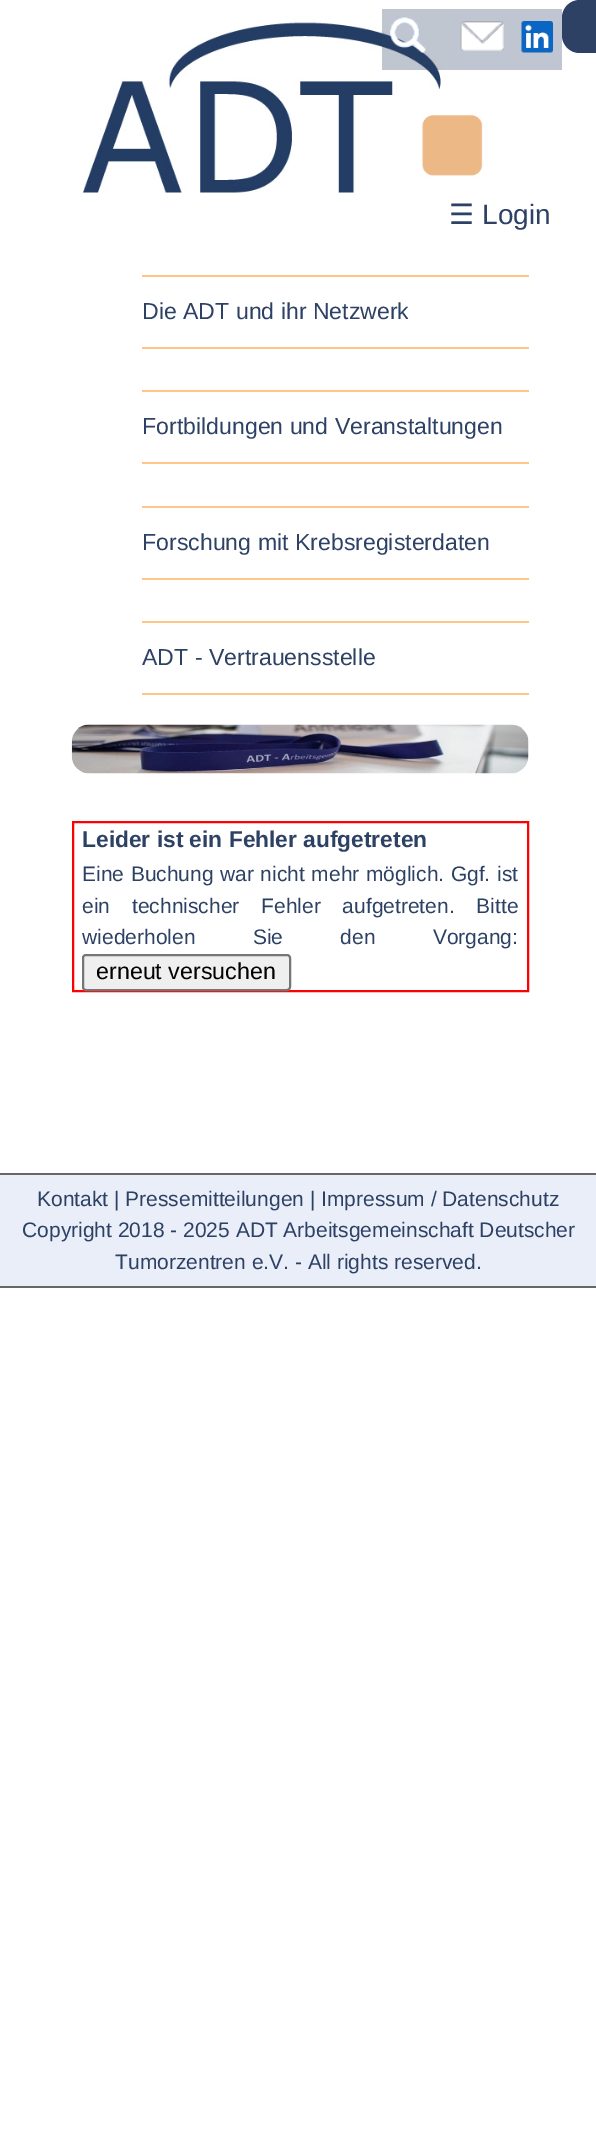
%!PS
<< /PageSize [596 2152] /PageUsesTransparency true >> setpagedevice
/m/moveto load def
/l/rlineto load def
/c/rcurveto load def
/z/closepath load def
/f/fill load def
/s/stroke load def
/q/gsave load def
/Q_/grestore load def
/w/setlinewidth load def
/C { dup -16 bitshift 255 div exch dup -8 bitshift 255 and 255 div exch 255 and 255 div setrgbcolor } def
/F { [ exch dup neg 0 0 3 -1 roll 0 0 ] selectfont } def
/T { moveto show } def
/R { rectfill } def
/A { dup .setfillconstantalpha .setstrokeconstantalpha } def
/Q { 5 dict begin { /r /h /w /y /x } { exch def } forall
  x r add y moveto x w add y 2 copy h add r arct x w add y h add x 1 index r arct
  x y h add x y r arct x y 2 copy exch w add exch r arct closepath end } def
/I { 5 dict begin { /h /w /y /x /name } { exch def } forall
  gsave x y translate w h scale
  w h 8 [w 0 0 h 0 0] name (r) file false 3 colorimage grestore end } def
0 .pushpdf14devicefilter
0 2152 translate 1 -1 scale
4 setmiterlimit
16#FFFFFF C
0 0 596 2152 R
(1.rgb) 83 22 400 171 I
16#2D4164 C
579.5 0 m 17.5 0 l 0 53 l -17.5 0 l -9.5 0 -17.5 -8 -17.5 -17.5 c 0 -18 l 0 -9.5 8 -17.5 17.5 -17.5 c z f
0.3 A
382 9 70 61 R
1 A
(2.rgb) 390 17 36 36 I
16#C0C6D1 C
452 9 110 61 R
(3.rgb) 460 21 44 30 I
(4.rgb) 521 21 32 32 I
/DejaVuSans-Regular 28 F
16#2D4164 C
(☰) 449 224 T
/LiberationSans-Regular 28 F
(Login) 482 224 T
16#FFC689 C
142 275 387 2 R
142 347 387 2 R
q
142 296 266 31 rectclip
/LiberationSans-Regular 23.1 F
16#2D4164 C
(Die ADT und ihr Netzwerk) 142 319 T
Q_
142 390 387 2 R
142 462 387 2 R
/LiberationSans-Regular 23.1 F
16#2D4164 C
(Fortbildungen und Veranstaltungen) 142 434 T
16#FFC689 C
142 506 387 2 R
142 578 387 2 R
16#2D4164 C
(Forschung mit Krebsregisterdaten) 142 550 T
16#FFC689 C
142 621 387 2 R
142 693 387 2 R
16#2D4164 C
(ADT - Vertrauensstelle) 142 665 T
(5.rgb) 71 724 458 50 I
16#FF0000 C
2 w
73 822 455 169 rectstroke
/LiberationSans-Bold 22.75 F
16#2D4164 C
(Leider ist ein Fehler aufgetreten) 82 847 T
/LiberationSans-Regular 21 F
82 881 m .75 0 32 (Eine Buchung war nicht mehr möglich. Ggf. ist) widthshow
82 913 m 16 0 32 (ein technischer Fehler aufgetreten. Bitte) widthshow
82 944 m 51.5 0 32 (wiederholen Sie den Vorgang:) widthshow
16#EFEFEF C
83 955 207 35 3 Q q f Q_
16#767676 C
s
/LiberationSans-Regular 23.25 F
16#000000 C
(erneut versuchen) 96 979 T
16#E9EEF8 C
0 1175 596 111 R
16#666666 C
0 1173 596 2 R
0 1286 596 2 R
/LiberationSans-Regular 21 F
16#2D4164 C
(Kontakt | Pressemitteilungen | Impressum / Datenschutz) 37 1206 T
(Copyright 2018 - 2025 ADT Arbeitsgemeinschaft Deutscher) 22 1237 T
(Tumorzentren e.V. - All rights reserved.) 115 1269 T
.poppdf14devicefilter showpage
